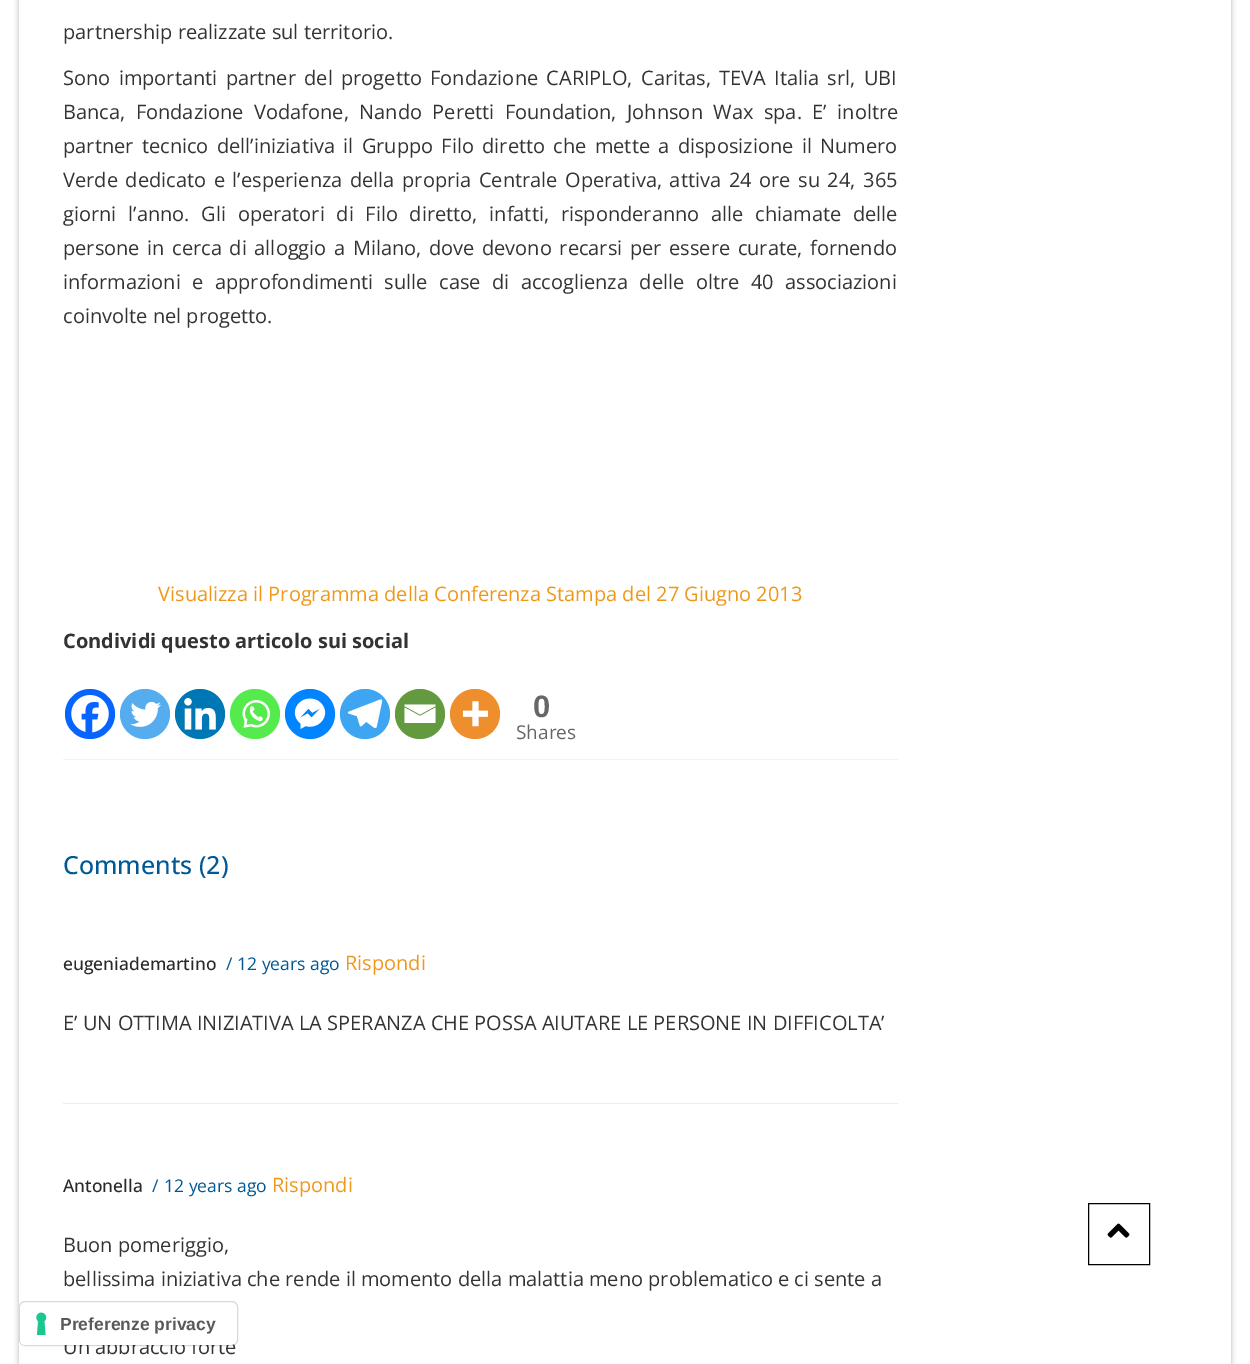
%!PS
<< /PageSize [1250 1364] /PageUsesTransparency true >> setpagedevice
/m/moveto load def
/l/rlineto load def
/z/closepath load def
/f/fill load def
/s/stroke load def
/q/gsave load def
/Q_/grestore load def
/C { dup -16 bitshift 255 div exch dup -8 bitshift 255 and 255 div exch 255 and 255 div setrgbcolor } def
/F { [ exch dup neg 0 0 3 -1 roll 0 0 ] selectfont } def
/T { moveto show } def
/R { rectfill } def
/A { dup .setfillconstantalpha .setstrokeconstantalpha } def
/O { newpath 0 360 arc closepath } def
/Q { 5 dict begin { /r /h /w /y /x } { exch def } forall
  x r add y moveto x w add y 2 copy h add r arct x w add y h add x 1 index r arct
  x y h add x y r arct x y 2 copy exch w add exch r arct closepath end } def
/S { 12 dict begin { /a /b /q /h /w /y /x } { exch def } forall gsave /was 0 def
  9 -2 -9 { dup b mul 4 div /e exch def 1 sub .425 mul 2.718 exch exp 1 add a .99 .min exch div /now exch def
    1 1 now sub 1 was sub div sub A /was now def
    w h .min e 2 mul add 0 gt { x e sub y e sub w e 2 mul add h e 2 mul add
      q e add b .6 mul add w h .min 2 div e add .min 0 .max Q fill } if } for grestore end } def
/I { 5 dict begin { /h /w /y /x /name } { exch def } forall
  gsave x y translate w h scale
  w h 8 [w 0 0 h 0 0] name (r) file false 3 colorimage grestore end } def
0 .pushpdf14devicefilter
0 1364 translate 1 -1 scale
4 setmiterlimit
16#FFFFFF C
0 0 1250 1364 R
q
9 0 m 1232 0 l 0 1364 l -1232 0 l z 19 -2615 m 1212 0 l 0 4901 l -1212 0 l z eoclip newpath
16#000000 C
19 -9 1212 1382 0 3 .3 S
Q_
16#F2F2F2 C
63 759 835 1 R
/OpenSans-Regular 20 F
16#333333 C
(partnership realizzate sul territorio.) 63 39 T
63 85 m 3.1 0 32 (Sono importanti partner del progetto Fondazione CARIPLO, Caritas, TEVA Italia srl, UBI) widthshow
63 119 m 5.25 0 32 (Banca, Fondazione Vodafone, Nando Peretti Foundation, Johnson Wax spa. E’ inoltre) widthshow
63 153 m 3.1 0 32 (partner tecnico dell’iniziativa il Gruppo Filo diretto che mette a disposizione il Numero) widthshow
63 187 m 2.4 0 32 (Verde dedicato e l’esperienza della propria Centrale Operativa, attiva 24 ore su 24, 365) widthshow
63 221 m 6.5 0 32 (giorni l’anno. Gli operatori di Filo diretto, infatti, risponderanno alle chiamate delle) widthshow
63 255 m 2.4 0 32 (persone in cerca di alloggio a Milano, dove devono recarsi per essere curate, fornendo) widthshow
63 289 m 6.25 0 32 (informazioni e approfondimenti sulle case di accoglienza delle oltre 40 associazioni) widthshow
(coinvolte nel progetto.) 63 323 T
16#EF9719 C
(Visualizza il Programma della Conferenza Stampa del 27 Giugno 2013) 158 601 T
/OpenSans-Bold 20 F
16#333333 C
(Condividi questo articolo sui social) 63 648 T
16#0765FE C
90 714 25 O f
(1.rgb) 71 695 38 38 I
16#55ACEE C
145 714 25 O f
(2.rgb) 130 701 31 26 I
16#0077B5 C
200 714 25 O f
(3.rgb) 184 698 32 32 I
16#55EB4C C
255 714 25 O f
(4.rgb) 242 700 28 28 I
16#0084FF C
310 714 25 O f
(5.rgb) 294 698 32 31 I
16#3DA5F1 C
365 714 25 O f
(6.rgb) 347 699 36 30 I
16#649A3F C
420 714 25 O f
16#FFFFFF C
403.5 704.5 m 32 0 l 0 1.5 l -15.5 8.5 l -15.5 -8.5 l 0 -1.5 l 404.5 707.5 m 15.5 8.5 l 15.5 -8.5 l 0 15.5 l -31 0 l 0 -15.5 l f
16#EE8E2D C
475 714 25 O f
(7.rgb) 462 701 26 26 I
/LiberationSans-Bold 31 F
16#666666 C
(0) 533 717 T
/OpenSans-Regular 19 F
(Shares) 516 739 T
/OpenSans-Medium 25 F
16#005995 C
(Comments \(2\)) 63 874 T
16#ECECEC C
63 1103 835 1 R
/OpenSans-Medium 17.5 F
16#292929 C
(eugeniademartino) 63 970 T
/OpenSans-Regular 17.5 F
16#005995 C
(/) 226 970 T
(12 years ago) 237 970 T
/OpenSans-Regular 20 F
16#EF9719 C
(Rispondi) 345 970 T
16#333333 C
(E’ UN OTTIMA INIZIATIVA LA SPERANZA CHE POSSA AIUTARE LE PERSONE IN DIFFICOLTA’) 63 1030 T
/OpenSans-Medium 17.5 F
16#292929 C
(Antonella) 63 1192 T
/OpenSans-Regular 17.5 F
16#005995 C
(/) 152 1192 T
(12 years ago) 164 1192 T
/OpenSans-Regular 20 F
16#EF9719 C
(Rispondi) 272 1192 T
16#333333 C
(Buon pomeriggio,) 63 1252 T
(bellissima iniziativa che rende il momento della malattia meno problematico e ci sente a) 63 1286 T
(Un abbraccio forte) 63 1354 T
16#000000 C
1088.5 1203.5 61 61 rectstroke
(8.rgb) 1107 1223 23 15 I
0.15 A
19.5 1301.5 218 44 5.5 Q s
1 A
16#FFFFFF C
20 1303 216 42 5 Q f
(9.rgb) 36 1312 11 23 I
/LiberationSans-Bold 17.5 F
16#595959 C
(Preferenze privacy) 60 1330 T
.poppdf14devicefilter showpage
